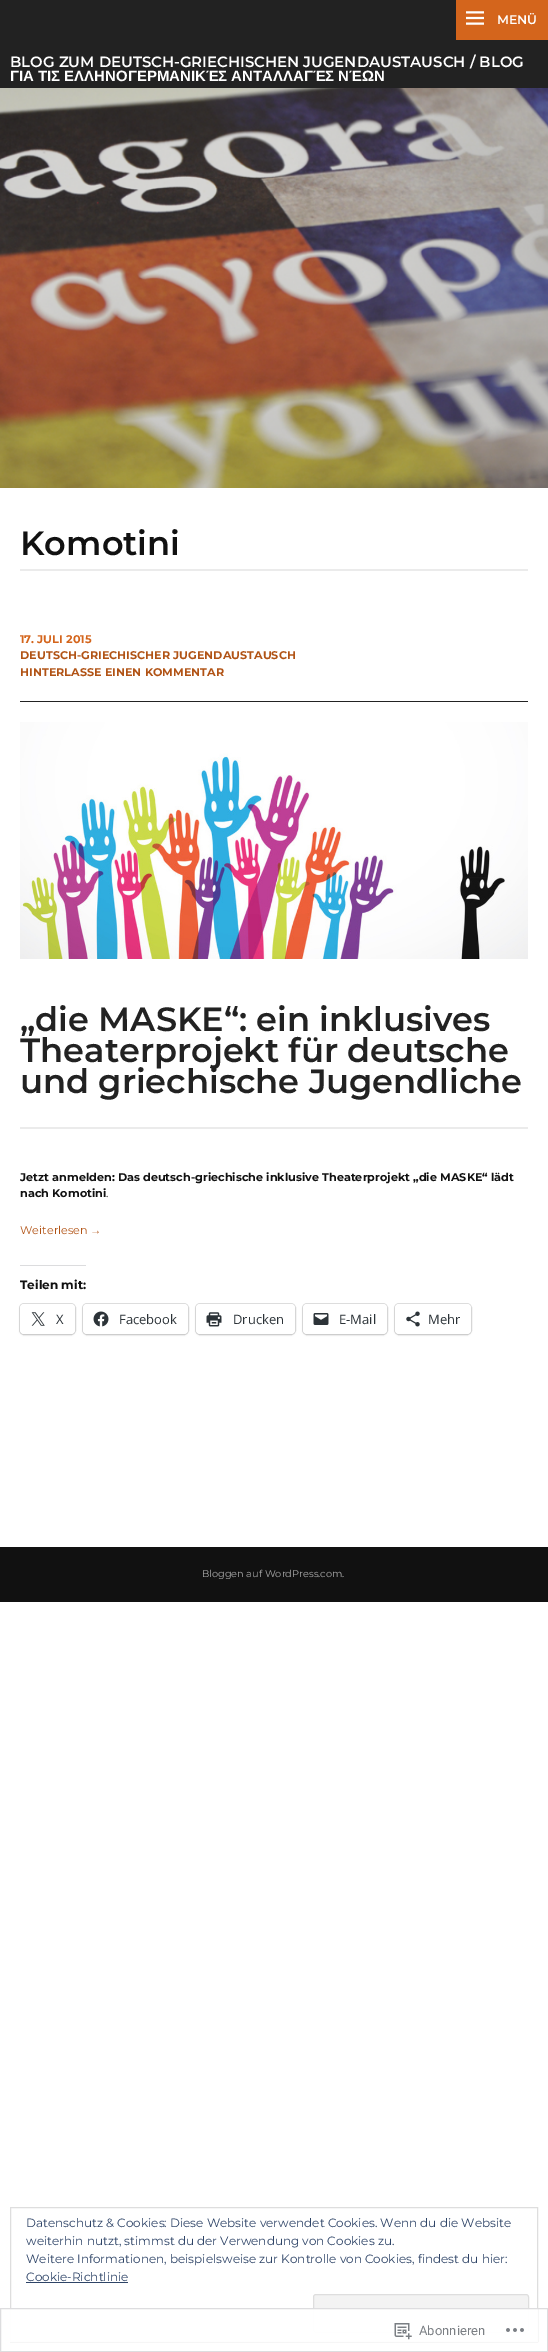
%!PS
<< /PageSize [548 2352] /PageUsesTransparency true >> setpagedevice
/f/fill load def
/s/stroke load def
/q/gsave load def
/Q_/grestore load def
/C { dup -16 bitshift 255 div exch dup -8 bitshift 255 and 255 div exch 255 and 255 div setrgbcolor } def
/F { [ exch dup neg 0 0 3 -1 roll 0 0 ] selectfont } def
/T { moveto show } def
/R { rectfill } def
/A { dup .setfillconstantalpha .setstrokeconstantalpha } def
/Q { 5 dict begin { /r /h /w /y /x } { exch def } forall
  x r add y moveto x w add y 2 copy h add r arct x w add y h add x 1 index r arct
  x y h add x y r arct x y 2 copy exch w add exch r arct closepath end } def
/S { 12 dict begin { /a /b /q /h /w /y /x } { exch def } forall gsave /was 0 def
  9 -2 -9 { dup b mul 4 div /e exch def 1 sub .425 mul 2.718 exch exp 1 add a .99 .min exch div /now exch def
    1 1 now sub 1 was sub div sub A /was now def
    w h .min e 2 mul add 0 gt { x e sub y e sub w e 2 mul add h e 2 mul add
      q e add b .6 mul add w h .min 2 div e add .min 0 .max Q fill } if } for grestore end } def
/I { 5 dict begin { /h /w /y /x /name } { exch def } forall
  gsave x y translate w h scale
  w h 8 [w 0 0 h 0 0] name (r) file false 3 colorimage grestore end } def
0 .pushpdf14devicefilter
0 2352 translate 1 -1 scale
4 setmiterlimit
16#FFFFFF C
0 0 548 2352 R
16#222222 C
0 0 548 88 R
16#D4651C C
456 0 92 40 R
(1.rgb) 466 11 18 14 I
/Montserrat-SemiBold 12.5 F
16#FFFFFF C
(MENÜ) 497 24 T
/Montserrat-SemiBold 14.95 F
(BLOG ZUM DEUTSCH-GRIECHISCHEN JUGENDAUSTAUSCH / BLOG) 10 67 T
/LiberationSans-Bold 14.95 F
(ΓΙΑ ΤΙΣ ΕΛΛΗΝΟΓΕΡΜΑΝΙΚΈΣ ΑΝΤΑΛΛΑΓΈΣ ΝΈΩΝ) 10 81 T
(2.rgb) 0 88 548 400 I
16#EBEBEB C
20 569 508 2 R
/Montserrat-SemiBold 33.6 F
16#111111 C
(Komotini) 20 555 T
16#222222 C
20 701 508 1 R
/Montserrat-Bold 11.2 F
16#D4651C C
(17. JULI 2015) 20 643 T
16#B15315 C
(DEUTSCH-GRIECHISCHER JUGENDAUSTAUSCH) 20 659 T
(HINTERLASSE EINEN KOMMENTAR) 20 676 T
(3.rgb) 20 722 508 237 I
16#EBEBEB C
20 1127 508 2 R
/Montserrat-SemiBold 33.6 F
16#222222 C
(„die MASKE“: ein inklusives) 20 1031 T
(Theaterprojekt für deutsche) 20 1062 T
(und griechische Jugendliche) 20 1093 T
/Montserrat-Bold 11.2 F
16#111111 C
(Jetzt anmelden: Das deutsch-griechische inklusive Theaterprojekt „die MASKE“ lädt) 20 1181 T
(nach Komotini) 20 1197 T
/Montserrat-Regular 11.2 F
(.) 106 1197 T
16#B15315 C
(Weiterlesen) 20 1234 T
/LiberationSans-Regular 11.2 F
(→) 90 1234 T
16#DCDCDE C
20 1265 66 1 R
/Montserrat-Bold 12 F
16#111111 C
(Teilen mit:) 20 1289 T
16#E0E0E0 C
19.5 1303.5 56 31 4.5 Q s
16#000000 C
20 1305 55 30 4 1 .12 S
16#FFFFFF C
20 1304 55 30 4 Q f
(4.rgb) 31 1312 14 14 I
/OpenSans-Regular 13 F
16#2C3338 C
(X) 56 1324 T
16#E0E0E0 C
82.5 1303.5 106 31 4.5 Q s
16#000000 C
83 1305 105 30 4 1 .12 S
16#FFFFFF C
83 1304 105 30 4 Q f
(5.rgb) 93 1311 16 16 I
16#2C3338 C
(Facebook) 119 1324 T
16#E0E0E0 C
195.5 1303.5 100 31 4.5 Q s
16#000000 C
196 1305 99 30 4 1 .12 S
16#FFFFFF C
196 1304 99 30 4 Q f
(6.rgb) 206 1312 16 15 I
16#2C3338 C
(Drucken) 233 1324 T
16#E0E0E0 C
302.5 1303.5 85 31 4.5 Q s
16#000000 C
303 1305 84 30 4 1 .12 S
16#FFFFFF C
303 1304 84 30 4 Q f
(7.rgb) 313 1313 16 12 I
16#2C3338 C
(E-Mail) 339 1324 T
16#E0E0E0 C
394.5 1303.5 77 31 4.5 Q s
16#000000 C
395 1305 76 30 4 1 .12 S
16#FFFFFF C
395 1304 76 30 4 Q f
(8.rgb) 406 1311 14 16 I
16#2C3338 C
(Mehr) 428 1324 T
16#111111 C
0 1547 548 55 R
/Montserrat-Regular 9.75 F
16#AAAAAA C
(Bloggen auf WordPress.com.) 202 1577 T
16#DEDEDE C
10.5 2207.5 527 134 rectstroke
/Montserrat-Regular 12 F
16#2E4467 C
(Datenschutz & Cookies: Diese Website verwendet Cookies. Wenn du die Website) 26 2227 T
(weiterhin nutzt, stimmst du der Verwendung von Cookies zu.) 26 2245 T
(Weitere Informationen, beispielsweise zur Kontrolle von Cookies, findest du hier:) 26 2263 T
(Cookie-Richtlinie) 26 2281 T
26 2282 102 1 R
16#F3F3F3 C
313.5 2294.5 215 38 2.5 Q q f Q_
16#DEDEDE C
s
0.98 A
16#FFFFFF C
10 2308 528 34 R
16#DCDCDE C
.5 2308.5 547 43 rectstroke
1 A
(9.rgb) 394 2323 18 17 I
/Roboto-Regular 13 F
16#7B7F84 C
(Abonnieren) 419 2335 T
(10.rgb) 506 2328 18 4 I
.poppdf14devicefilter showpage
